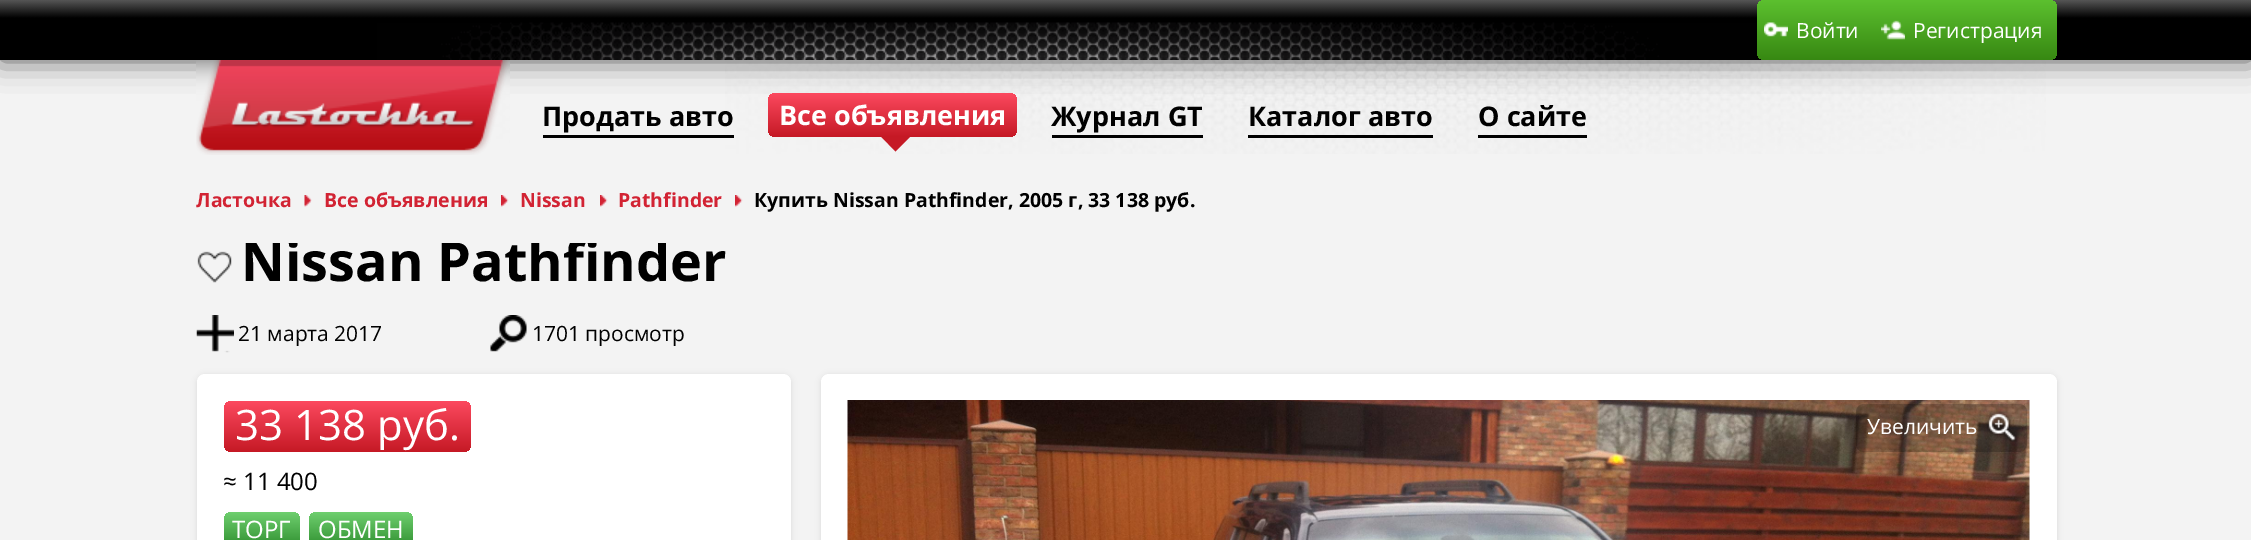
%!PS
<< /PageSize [2251 540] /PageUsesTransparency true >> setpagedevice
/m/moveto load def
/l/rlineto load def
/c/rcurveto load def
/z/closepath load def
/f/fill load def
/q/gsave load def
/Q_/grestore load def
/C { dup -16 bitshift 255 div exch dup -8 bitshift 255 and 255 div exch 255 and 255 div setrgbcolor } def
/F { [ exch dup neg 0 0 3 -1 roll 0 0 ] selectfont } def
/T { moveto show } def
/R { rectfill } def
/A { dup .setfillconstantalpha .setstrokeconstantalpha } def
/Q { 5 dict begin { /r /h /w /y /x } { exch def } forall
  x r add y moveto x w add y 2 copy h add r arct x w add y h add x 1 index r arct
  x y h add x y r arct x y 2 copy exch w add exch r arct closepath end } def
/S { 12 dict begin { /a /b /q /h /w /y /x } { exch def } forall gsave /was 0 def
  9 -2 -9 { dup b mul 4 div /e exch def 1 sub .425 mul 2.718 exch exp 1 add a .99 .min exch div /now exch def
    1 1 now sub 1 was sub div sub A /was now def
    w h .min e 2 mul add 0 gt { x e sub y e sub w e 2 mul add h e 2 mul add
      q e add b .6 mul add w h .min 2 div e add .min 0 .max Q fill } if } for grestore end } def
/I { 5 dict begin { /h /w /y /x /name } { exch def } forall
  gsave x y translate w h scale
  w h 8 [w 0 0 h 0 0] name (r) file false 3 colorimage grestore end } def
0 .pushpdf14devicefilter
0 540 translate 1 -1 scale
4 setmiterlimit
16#F3F3F3 C
0 0 2251 540 R
(4.rgb) 725 60 1321 94 I
16#555555 C
0 0 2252 60 0 15 1 S
(1.rgb) 0 0 2251 60 I
q 1757 0 300 60 8 Q clip newpath
<< /ShadingType 2 /ColorSpace /DeviceRGB /Coords [1907 0 1907 60] /Extend [true true] /Function << /FunctionType 2 /Domain [0 1] /C0 [.361 .753 .184] /C1 [.216 .533 .071] /N 1 >> >> shfill Q_
(2.rgb) 1764 22 24 15 I
/OpenSans-Regular 21 F
16#FFFFFF C
(Войти) 1796 38 T
(3.rgb) 1881 20 24 20 I
(Регистрация) 1913 38 T
(5.rgb) 196 60 314 95 I
16#000000 C
543 135 191 3 R
/OpenSans-Bold 27 F
(Продать авто) 542 126 T
16#C51925 C
881 136.5 m 14.5 -15 l 15 15 l -15 15 l z f
q 768 93 249 44 8 Q clip newpath
<< /ShadingType 2 /ColorSpace /DeviceRGB /Coords [893 93 893 137] /Extend [true true] /Function << /FunctionType 2 /Domain [0 1] /C0 [.988 .286 .373] /C1 [.773 .098 .145] /N 1 >> >> shfill Q_
16#FFFFFF C
(Все объявления) 779 125 T
16#000000 C
1052 135 151 3 R
(Журнал GT) 1051 126 T
1248 135 185 3 R
(Каталог авто) 1248 126 T
1478 135 109 3 R
(О сайте) 1478 126 T
/OpenSans-Bold 19.5 F
16#D22333 C
(Ласточка) 196 207 T
(6.rgb) 304 195 8 12 I
(Все объявления) 324 207 T
(7.rgb) 501 195 8 12 I
(Nissan) 520 207 T
(7.rgb) 600 195 8 12 I
(Pathfinder) 618 207 T
(7.rgb) 735 195 8 12 I
16#000000 C
(Купить Nissan Pathfinder, 2005 г, 33 138 руб.) 754 207 T
(8.rgb) 197 251 35 32 I
q
191 243 1872 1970 rectclip
/OpenSans-Bold 54 F
(Nissan Pathfinder) 241 281 T
Q_
(9.rgb) 196 315 38 38 I
/OpenSans-Regular 21 F
(21 марта 2017) 238 341 T
(10.rgb) 490 315 37 37 I
(1701 просмотр) 532 341 T
197 375 594 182 8 3 .1 S
16#FFFFFF C
197 374 594 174 8 Q f
q 224 401 247 51 8 Q clip newpath
<< /ShadingType 2 /ColorSpace /DeviceRGB /Coords [347 401 347 452] /Extend [true true] /Function << /FunctionType 2 /Domain [0 1] /C0 [.988 .286 .373] /C1 [.773 .098 .145] /N 1 >> >> shfill Q_
/OpenSans-Regular 42 F
(33 138 руб.) 235 440 T
/OpenSans-Regular 24 F
16#000000 C
(≈ 11 400) 223 490 T
q 224 512 76 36 8 Q clip newpath
<< /ShadingType 2 /ColorSpace /DeviceRGB /Coords [262 512 262 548] /Extend [true true] /Function << /FunctionType 2 /Domain [0 1] /C0 [.435 .812 .435] /C1 [.184 .561 .184] /N 1 >> >> shfill Q_
16#FFFFFF C
(ТОРГ) 232 538 T
q 309 512 104 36 8 Q clip newpath
<< /ShadingType 2 /ColorSpace /DeviceRGB /Coords [361 512 361 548] /Extend [true true] /Function << /FunctionType 2 /Domain [0 1] /C0 [.435 .812 .435] /C1 [.184 .561 .184] /N 1 >> >> shfill Q_
(ОБМЕН) 318 538 T
16#000000 C
821 375 1236 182 8 3 .1 S
16#FFFFFF C
821 374 1236 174 8 Q f
(11.rgb) 847 400 1183 140 I
0.2 A
16#000000 C
1979 404 m 40 0 l 4.5 0 8 3.5 8 8 c 0 32 l 0 4.5 -3.5 8 -8 8 c -40 0 l z f
1 A
(12.rgb) 1985 410 32 32 I
0.2 A
1864 404 m 115 0 l 0 48 l -115 0 l -4.5 0 -8 -3.5 -8 -8 c 0 -32 l 0 -4.5 3.5 -8 8 -8 c z f
/OpenSans-Regular 21 F
1 A
16#FFFFFF C
(Увеличить) 1867 434 T
.poppdf14devicefilter showpage
